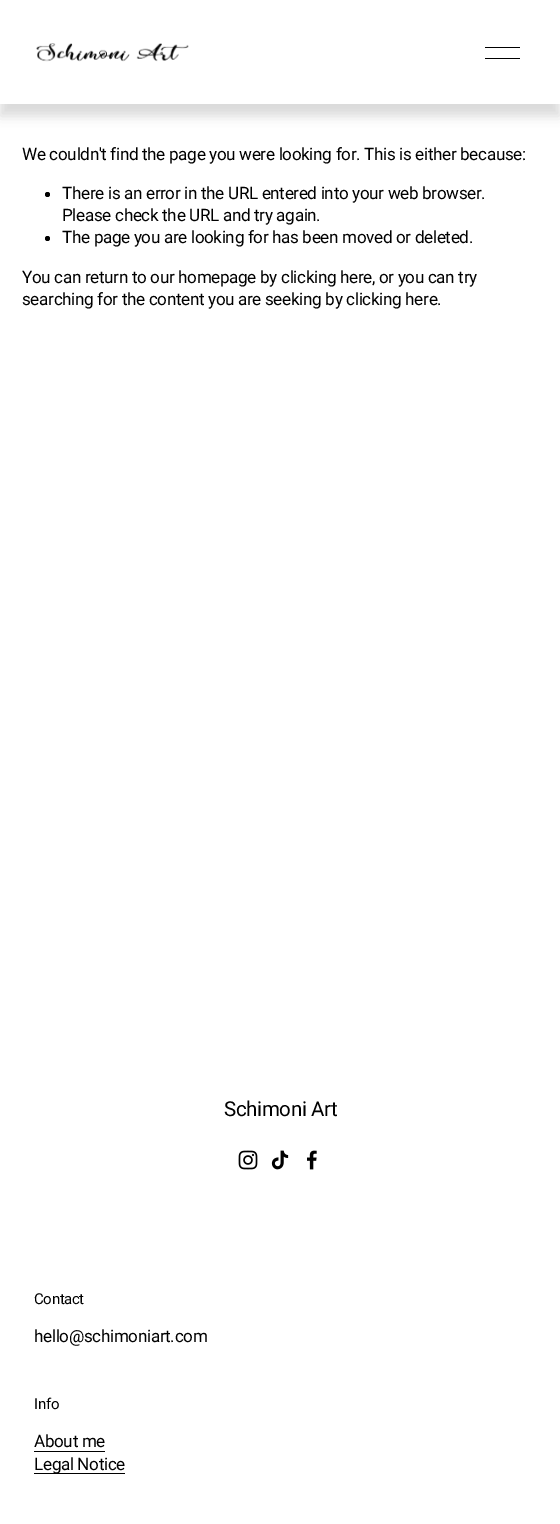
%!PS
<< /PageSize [560 1524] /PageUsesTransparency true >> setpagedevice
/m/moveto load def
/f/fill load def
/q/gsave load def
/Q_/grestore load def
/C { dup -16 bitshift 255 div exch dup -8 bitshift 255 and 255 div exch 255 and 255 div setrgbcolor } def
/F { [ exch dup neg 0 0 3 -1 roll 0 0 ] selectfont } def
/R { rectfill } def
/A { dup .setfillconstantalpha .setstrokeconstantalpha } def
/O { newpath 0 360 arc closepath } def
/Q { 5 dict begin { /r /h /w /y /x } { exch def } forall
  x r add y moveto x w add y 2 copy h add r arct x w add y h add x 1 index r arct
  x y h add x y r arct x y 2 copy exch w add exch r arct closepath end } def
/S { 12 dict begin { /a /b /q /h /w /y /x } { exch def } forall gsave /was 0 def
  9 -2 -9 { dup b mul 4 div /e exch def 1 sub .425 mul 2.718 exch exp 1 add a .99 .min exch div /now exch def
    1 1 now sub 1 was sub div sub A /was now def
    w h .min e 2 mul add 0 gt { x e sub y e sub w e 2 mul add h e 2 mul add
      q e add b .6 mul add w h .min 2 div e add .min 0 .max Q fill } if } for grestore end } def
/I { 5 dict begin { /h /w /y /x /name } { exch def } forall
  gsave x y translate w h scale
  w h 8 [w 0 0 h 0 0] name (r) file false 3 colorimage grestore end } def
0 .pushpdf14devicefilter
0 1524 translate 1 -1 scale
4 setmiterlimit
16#FFFFFF C
0 0 560 1524 R
q
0 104 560 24 rectclip
16#D9D9D9 C
0 12 560 104 0 6 1 S
Q_
(1.rgb) 36 43 153 19 I
16#000000 C
485 47 35 1 R
485 58 35 1 R
/Roboto-Regular 17.1 F
22 160 m -.35 0 (We couldn't find the page you were looking for. This is either because:) ashow
47.5 194.5 2.5 O f
62 199 m -.35 0 (There is an error in the URL entered into your web browser.) ashow
62 221 m -.35 0 (Please check the URL and try again.) ashow
47.5 238.5 2.5 O f
62 243 m -.35 0 (The page you are looking for has been moved or deleted.) ashow
22 283 m -.35 0 (You can return to our homepage by clicking here, or you can try) ashow
22 305 m -.35 0 (searching for the content you are seeking by clicking here.) ashow
/Roboto-Regular 20.5 F
224 1116 m -.35 0 (Schimoni Art) ashow
(2.rgb) 238 1150 20 20 I
(3.rgb) 271 1150 18 20 I
(4.rgb) 307 1150 10 20 I
/Roboto-Regular 15 F
34 1304 m -.35 0 (Contact) ashow
/Roboto-Regular 17.1 F
34 1342 m -.35 0 (hello@schimoniart.com) ashow
/Roboto-Regular 15 F
34 1409 m -.35 0 (Info) ashow
/Roboto-Regular 17.1 F
34 1447 m -.35 0 (About me) ashow
34 1451 71 1 R
34 1473 91 1 R
34 1470 m -.35 0 (Legal Notice) ashow
.poppdf14devicefilter showpage
